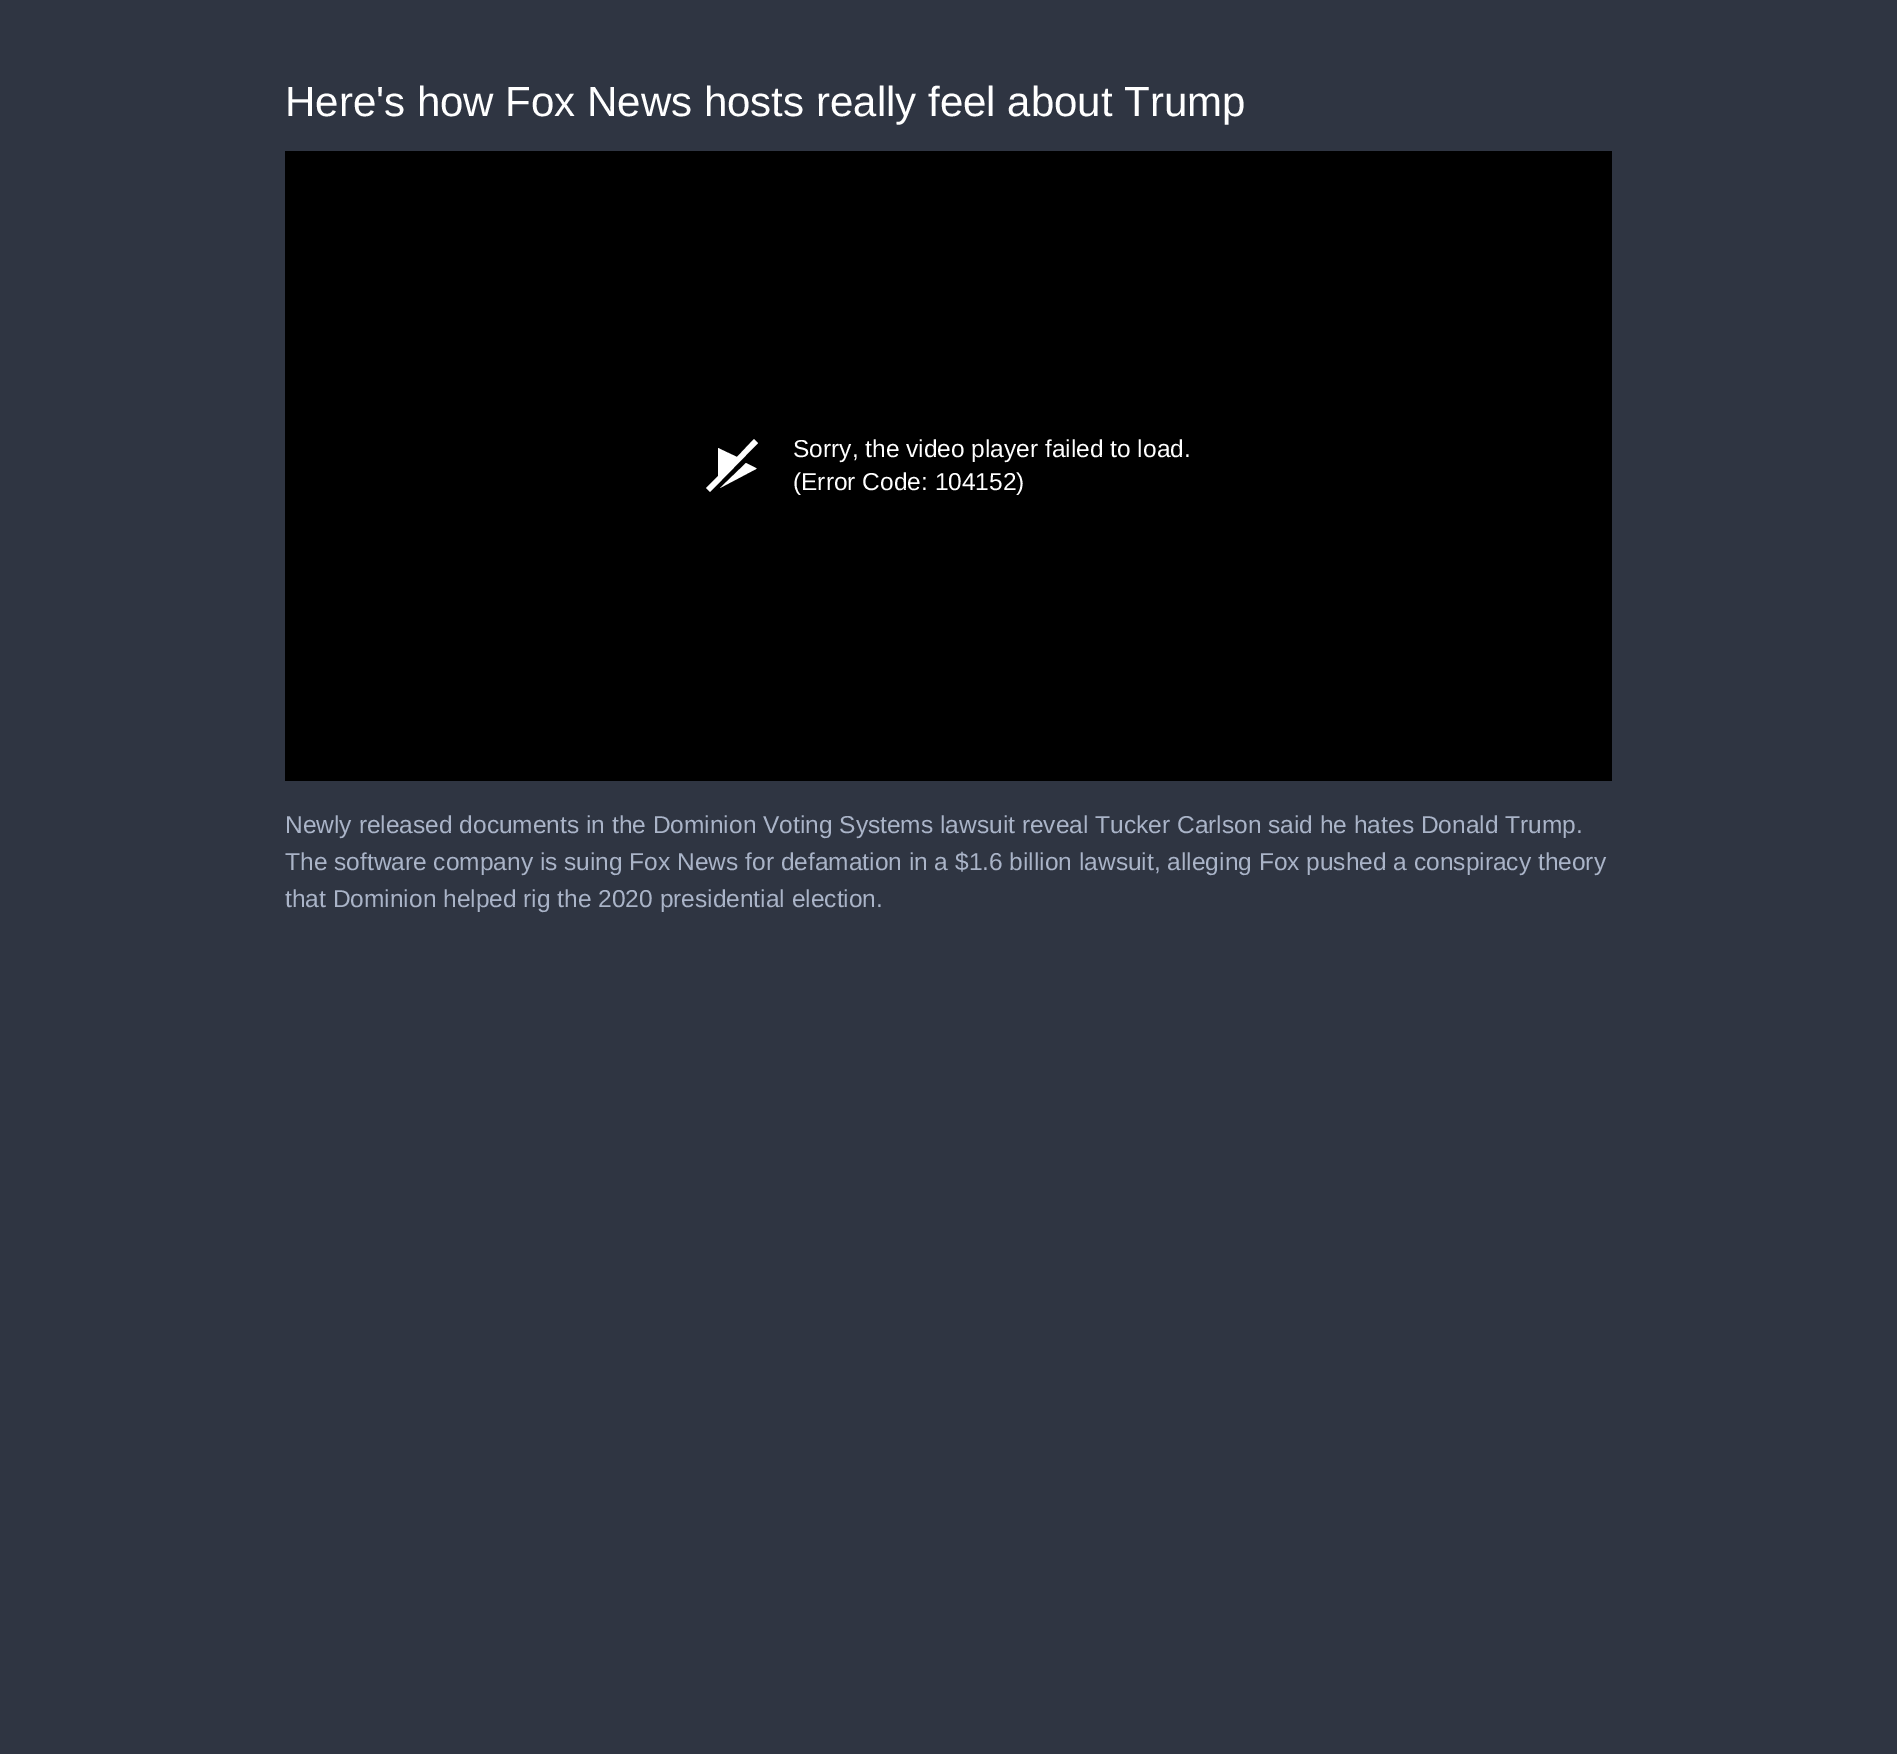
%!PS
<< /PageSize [1897 1754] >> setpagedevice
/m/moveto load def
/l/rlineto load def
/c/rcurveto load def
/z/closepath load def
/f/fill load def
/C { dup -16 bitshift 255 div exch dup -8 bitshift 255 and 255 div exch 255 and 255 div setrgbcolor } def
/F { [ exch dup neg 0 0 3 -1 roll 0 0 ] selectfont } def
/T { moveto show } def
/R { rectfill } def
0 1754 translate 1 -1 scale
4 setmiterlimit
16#2F3542 C
0 0 1897 1754 R
/LiberationSans-Regular 42 F
16#FFFFFF C
(Here's how Fox News hosts really feel about Trump) 285 116 T
16#000000 C
285 151 1327 630 R
16#FFFFFF C
756 469 m -36 19 l 26 -25 l 10 5 12 6 10 6 c z 754 439 m -17 18 l -19 -9 l 0 28 l -12 12 l 4 4 l 48 -49 l z f
/LiberationSans-Regular 24.5 F
(Sorry, the video player failed to load.) 793 457 T
(\(Error Code: 104152\)) 793 490 T
16#AAB4C8 C
(Newly released documents in the Dominion Voting Systems lawsuit reveal Tucker Carlson said he hates Donald Trump.) 285 833 T
(The software company is suing Fox News for defamation in a $1.6 billion lawsuit, alleging Fox pushed a conspiracy theory) 285 870 T
(that Dominion helped rig the 2020 presidential election.) 285 907 T
showpage
